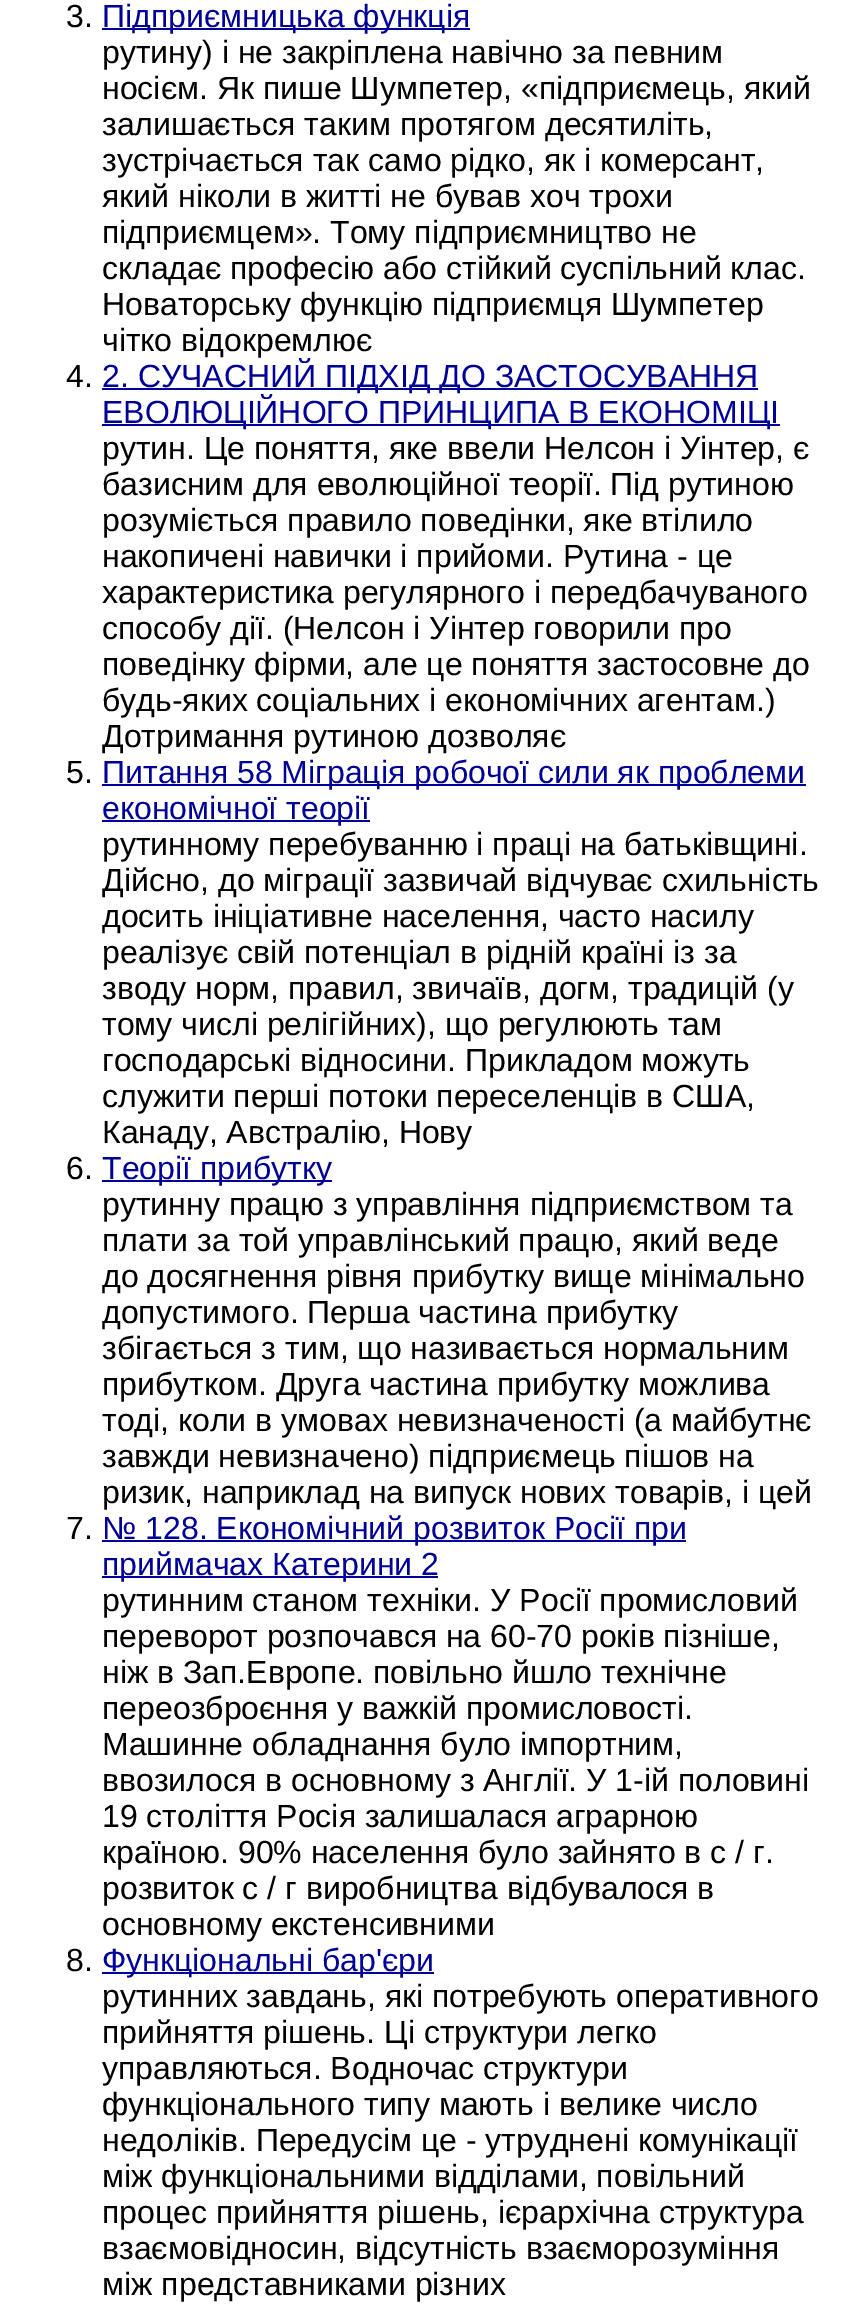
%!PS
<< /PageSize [845 2317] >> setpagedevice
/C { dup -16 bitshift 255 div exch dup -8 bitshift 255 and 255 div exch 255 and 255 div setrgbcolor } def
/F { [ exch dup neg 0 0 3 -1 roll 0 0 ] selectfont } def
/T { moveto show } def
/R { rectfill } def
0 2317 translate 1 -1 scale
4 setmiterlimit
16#FFFFFF C
0 0 845 2317 R
/LiberationSans-Regular 32 F
16#000000 C
(3.) 66 27 T
16#000099 C
102 28 368 2 R
(Підприємницька функція) 102 27 T
16#000000 C
(рутину\) і не закріплена навічно за певним) 102 63 T
(носієм. Як пише Шумпетер, «підприємець, який) 102 99 T
(залишається таким протягом десятиліть,) 102 135 T
(зустрічається так само рідко, як і комерсант,) 102 171 T
(який ніколи в житті не бував хоч трохи) 102 207 T
(підприємцем». Тому підприємництво не) 102 243 T
(складає професію або стійкий суспільний клас.) 102 279 T
(Новаторську функцію підприємця Шумпетер) 102 315 T
(чітко відокремлює) 102 351 T
(4.) 66 387 T
16#000099 C
102 388 656 2 R
(2. СУЧАСНИЙ ПІДХІД ДО ЗАСТОСУВАННЯ) 102 387 T
102 424 678 2 R
(ЕВОЛЮЦІЙНОГО ПРИНЦИПА В ЕКОНОМІЦІ) 102 423 T
16#000000 C
(рутин. Це поняття, яке ввели Нелсон і Уінтер, є) 102 459 T
(базисним для еволюційної теорії. Під рутиною) 102 495 T
(розуміється правило поведінки, яке втілило) 102 531 T
(накопичені навички і прийоми. Рутина - це) 102 567 T
(характеристика регулярного і передбачуваного) 102 603 T
(способу дії. \(Нелсон і Уінтер говорили про) 102 639 T
(поведінку фірми, але це поняття застосовне до) 102 675 T
(будь-яких соціальних і економічних агентам.\)) 102 711 T
(Дотримання рутиною дозволяє) 102 747 T
(5.) 66 783 T
16#000099 C
102 784 704 2 R
(Питання 58 Міграція робочої сили як проблеми) 102 783 T
102 820 268 2 R
(економічної теорії) 102 819 T
16#000000 C
(рутинному перебуванню і праці на батьківщині.) 102 855 T
(Дійсно, до міграції зазвичай відчуває схильність) 102 891 T
(досить ініціативне населення, часто насилу) 102 927 T
(реалізує свій потенціал в рідній країні із за) 102 963 T
(зводу норм, правил, звичаїв, догм, традицій \(у) 102 999 T
(тому числі релігійних\), що регулюють там) 102 1035 T
(господарські відносини. Прикладом можуть) 102 1071 T
(служити перші потоки переселенців в США,) 102 1107 T
(Канаду, Австралію, Нову) 102 1143 T
(6.) 66 1179 T
16#000099 C
102 1180 230 2 R
(Теорії прибутку) 102 1179 T
16#000000 C
(рутинну працю з управління підприємством та) 102 1215 T
(плати за той управлінський працю, який веде) 102 1251 T
(до досягнення рівня прибутку вище мінімально) 102 1287 T
(допустимого. Перша частина прибутку) 102 1323 T
(збігається з тим, що називається нормальним) 102 1359 T
(прибутком. Друга частина прибутку можлива) 102 1395 T
(тоді, коли в умовах невизначеності \(а майбутнє) 102 1431 T
(завжди невизначено\) підприємець пішов на) 102 1467 T
(ризик, наприклад на випуск нових товарів, і цей) 102 1503 T
(7.) 66 1539 T
16#000099 C
102 1540 584 2 R
(№ 128. Економічний розвиток Росії при) 102 1539 T
102 1576 336 2 R
(приймачах Катерини 2) 102 1575 T
16#000000 C
(рутинним станом техніки. У Росії промисловий) 102 1611 T
(переворот розпочався на 60-70 років пізніше,) 102 1647 T
(ніж в Зап.Европе. повільно йшло технічне) 102 1683 T
(переозброєння у важкій промисловості.) 102 1719 T
(Машинне обладнання було імпортним,) 102 1755 T
(ввозилося в основному з Англії. У 1-ій половині) 102 1791 T
(19 століття Росія залишалася аграрною) 102 1827 T
(країною. 90% населення було зайнято в с / г.) 102 1863 T
(розвиток с / г виробництва відбувалося в) 102 1899 T
(основному екстенсивними) 102 1935 T
(8.) 66 1971 T
16#000099 C
102 1972 332 2 R
(Функціональні бар'єри) 102 1971 T
16#000000 C
(рутинних завдань, які потребують оперативного) 102 2007 T
(прийняття рішень. Ці структури легко) 102 2043 T
(управляються. Водночас структури) 102 2079 T
(функціонального типу мають і велике число) 102 2115 T
(недоліків. Передусім це - утруднені комунікації) 102 2151 T
(між функціональними відділами, повільний) 102 2187 T
(процес прийняття рішень, ієрархічна структура) 102 2223 T
(взаємовідносин, відсутність взаєморозуміння) 102 2259 T
(між представниками різних) 102 2295 T
showpage
